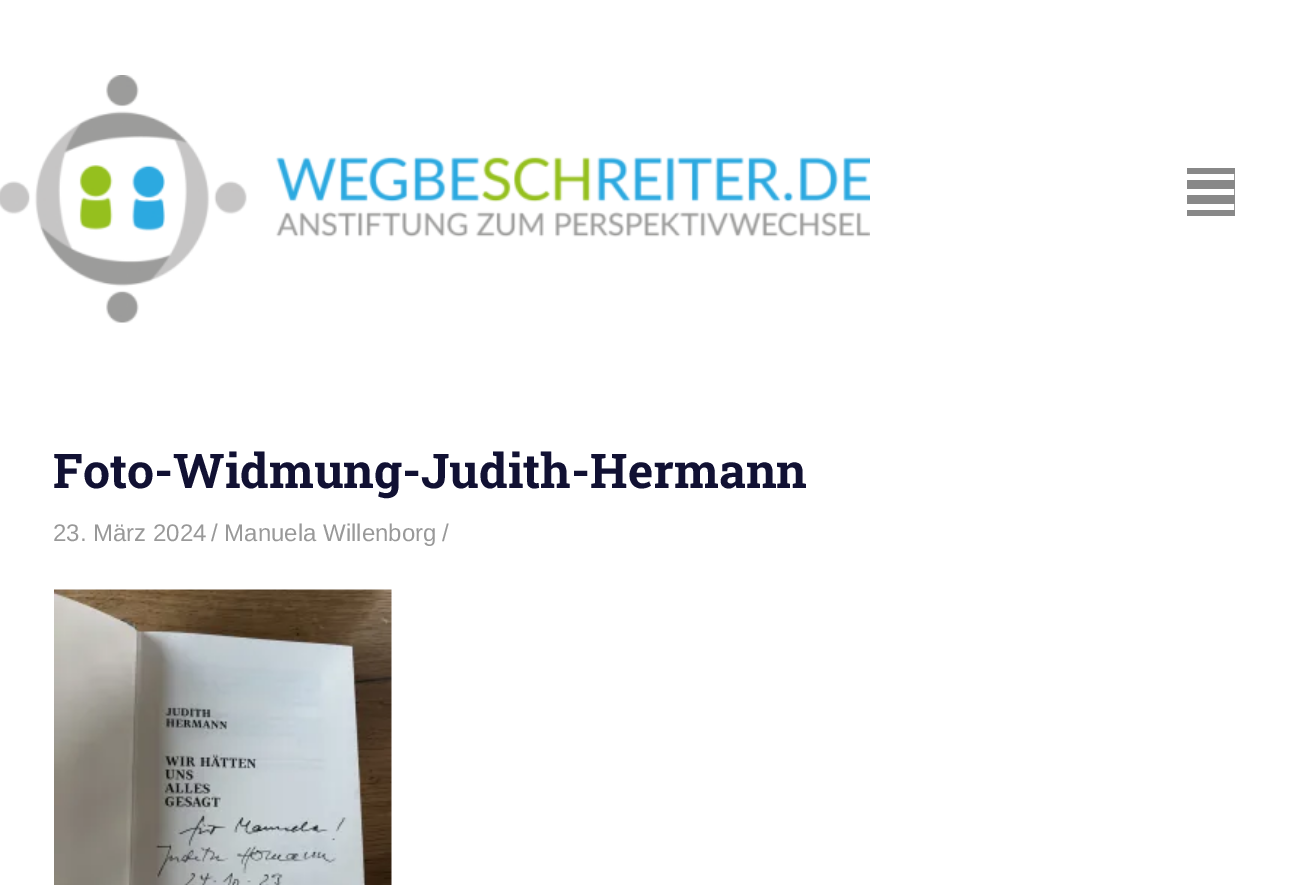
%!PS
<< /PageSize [1306 885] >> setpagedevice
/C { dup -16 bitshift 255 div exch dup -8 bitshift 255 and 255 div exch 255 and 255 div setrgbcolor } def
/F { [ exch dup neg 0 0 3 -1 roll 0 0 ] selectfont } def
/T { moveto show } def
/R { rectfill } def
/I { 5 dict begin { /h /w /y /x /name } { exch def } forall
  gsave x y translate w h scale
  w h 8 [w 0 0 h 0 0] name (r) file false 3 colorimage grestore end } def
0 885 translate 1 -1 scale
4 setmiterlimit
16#FFFFFF C
0 0 1306 885 R
(1.rgb) 0 75 870 248 I
16#888888 C
1187 168 48 48 R
(2.rgb) 1187 174 48 36 I
/RobotoSlab-Bold 48 F
16#111133 C
(Foto-Widmung-Judith-Hermann) 53 488 T
/LiberationSans-Regular 24 F
16#999999 C
(23. März 2024) 53 541 T
(/ Manuela Willenborg) 211 541 T
(/) 442 541 T
(3.rgb) 54 589 338 296 I
showpage
